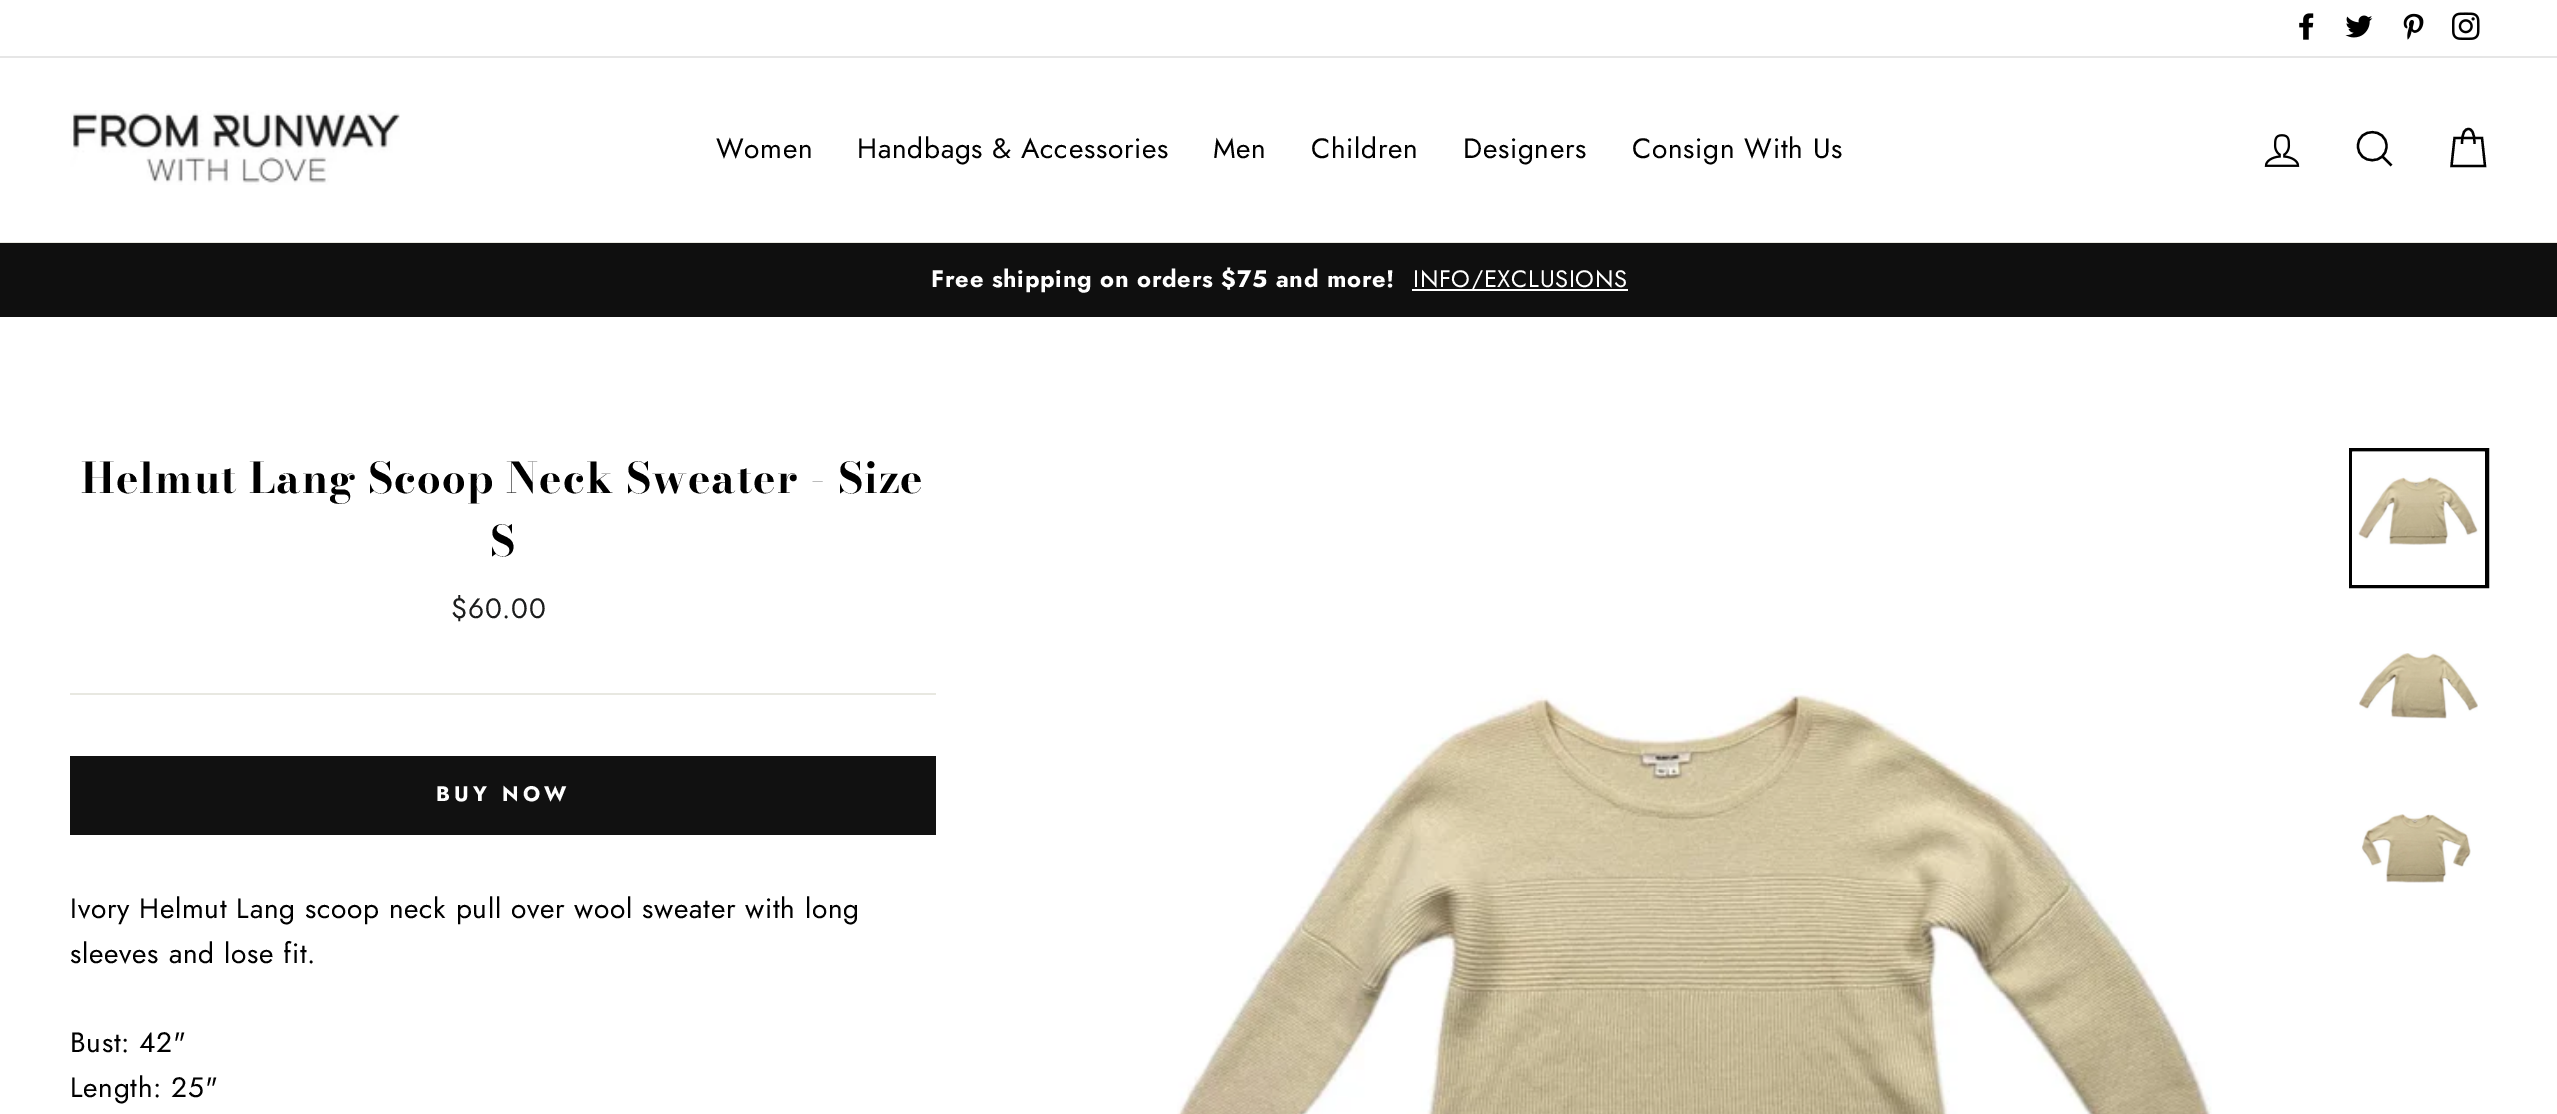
%!PS
<< /PageSize [2557 1114] >> setpagedevice
/m/moveto load def
/l/rlineto load def
/c/rcurveto load def
/z/closepath load def
/s/stroke load def
/w/setlinewidth load def
/C { dup -16 bitshift 255 div exch dup -8 bitshift 255 and 255 div exch 255 and 255 div setrgbcolor } def
/F { [ exch dup neg 0 0 3 -1 roll 0 0 ] selectfont } def
/R { rectfill } def
/I { 5 dict begin { /h /w /y /x /name } { exch def } forall
  gsave x y translate w h scale
  w h 8 [w 0 0 h 0 0] name (r) file false 3 colorimage grestore end } def
0 1114 translate 1 -1 scale
4 setmiterlimit
16#FFFFFF C
0 0 2557 1114 R
(1.rgb) 2299 13 15 27 I
(2.rgb) 2345 15 28 23 I
(3.rgb) 2403 13 21 27 I
(4.rgb) 2452 12 28 28 I
16#E6E6E6 C
0 56 2557 2 R
16#E8E8E1 C
0 242 2557 1 R
(5.rgb) 70 110 330 75 I
/Jost-Regular 28 F
16#000000 C
716 158 m .7 0 (Women) ashow
857 158 m .7 0 (Handbags & Accessories) ashow
1213 158 m .7 0 (Men) ashow
1311 158 m .7 0 (Children) ashow
1463 158 m .7 0 (Designers) ashow
1632 158 m .7 0 (Consign With Us) ashow
(6.rgb) 2264 134 36 33 I
2.3 w
2386.5 146 m 0 19 -28.5 19 -28.5 0 c 0 -18.5 28.5 -18.5 28.5 0 c z 2391.5 165.5 m -9 -9 l s
2462 144 m 0 -12 3 -15 6.5 -15 c 3 0 6 3 6 15 c 2454.5 138 m 27.5 0 l 3 28 l -33.5 0 l z s
16#0F0F0F C
0 243 2557 74 R
/Jost-Bold 23.75 F
16#FFFFFF C
931 287 m .7 0 (Free shipping on orders $75 and more!) ashow
1412 289 216 2 R
/Jost-Regular 23.75 F
1413 287 m .7 0 (INFO/EXCLUSIONS) ashow
/BodoniModa-Bold 42.1 F
16#000000 C
81 493 m 1.05 0 (Helmut Lang Scoop Neck Sweater - Size) ashow
490 556 m 1.05 0 (S) ashow
/Jost-Regular 28 F
16#1C1D1D C
451 618 m .7 0 ($60.00) ashow
16#E8E8E1 C
70 693 866 2 R
16#111111 C
70 756 866 79 R
/Jost-Bold 21 F
16#FFFFFF C
436 801 m 4.25 0 (BUY NOW) ashow
/Jost-Regular 28 F
16#000000 C
70 918 m .7 0 (Ivory Helmut Lang scoop neck pull over wool sweater with long) ashow
70 963 m .7 0 (sleeves and lose fit.) ashow
70 1052 m .7 0 (Bust: 42") ashow
70 1097 m .7 0 (Length: 25") ashow
(7.rgb) 1177 688 1035 426 I
4 w
2351 450 136 136 rectstroke
16#FFFFFF C
2352 452 133 133 R
(8.rgb) 2352 451 133 94 I
(9.rgb) 2359 653 119 66 I
(10.rgb) 2361 814 110 69 I
showpage
